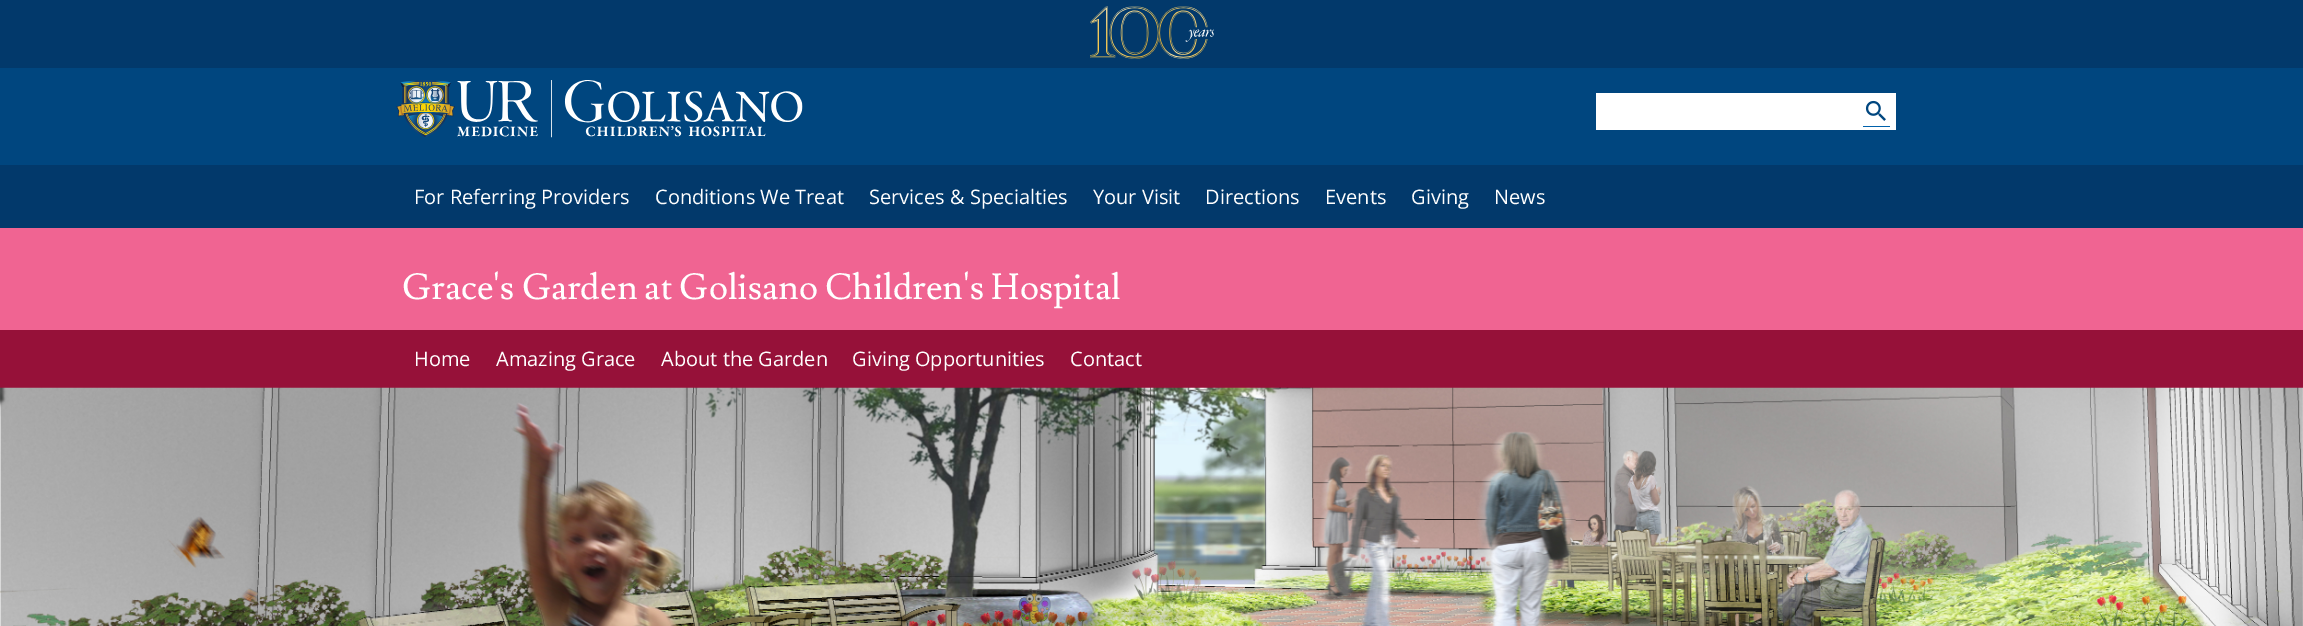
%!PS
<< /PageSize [2303 626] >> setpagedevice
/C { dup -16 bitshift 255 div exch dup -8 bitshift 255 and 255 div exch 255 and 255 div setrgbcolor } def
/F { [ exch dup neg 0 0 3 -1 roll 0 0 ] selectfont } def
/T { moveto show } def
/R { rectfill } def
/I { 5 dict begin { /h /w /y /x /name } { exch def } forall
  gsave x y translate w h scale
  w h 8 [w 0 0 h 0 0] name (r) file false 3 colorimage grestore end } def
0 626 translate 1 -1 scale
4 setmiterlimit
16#00467F C
0 0 2303 626 R
16#02396B C
0 0 2303 68 R
(1.rgb) 1090 6 124 53 I
(2.rgb) 396 80 407 58 I
16#FFFFFF C
1596 93 300 37 R
(3.rgb) 1865 100 21 21 I
16#0061AB C
1863 126 27 1 R
16#02396B C
0 165 2303 63 R
/OpenSans-Regular 20 F
16#FFFFFF C
(For Referring Providers) 414 204 T
(Conditions We Treat) 655 204 T
(Services & Specialties) 869 204 T
(Your Visit) 1093 204 T
(Directions) 1205 204 T
(Events) 1325 204 T
(Giving) 1411 204 T
(News) 1494 204 T
16#F06492 C
0 228 2303 102 R
/Lusitana-Regular 36 F
16#FFFFFF C
(Grace's Garden at Golisano Children's Hospital) 402 299 T
16#961139 C
0 330 2303 58 R
/OpenSans-Regular 20 F
16#FFFFFF C
(Home) 414 366 T
(Amazing Grace) 496 366 T
(About the Garden) 661 366 T
(Giving Opportunities) 852 366 T
(Contact) 1070 366 T
(4.rgb) 0 387 2303 239 I
showpage
